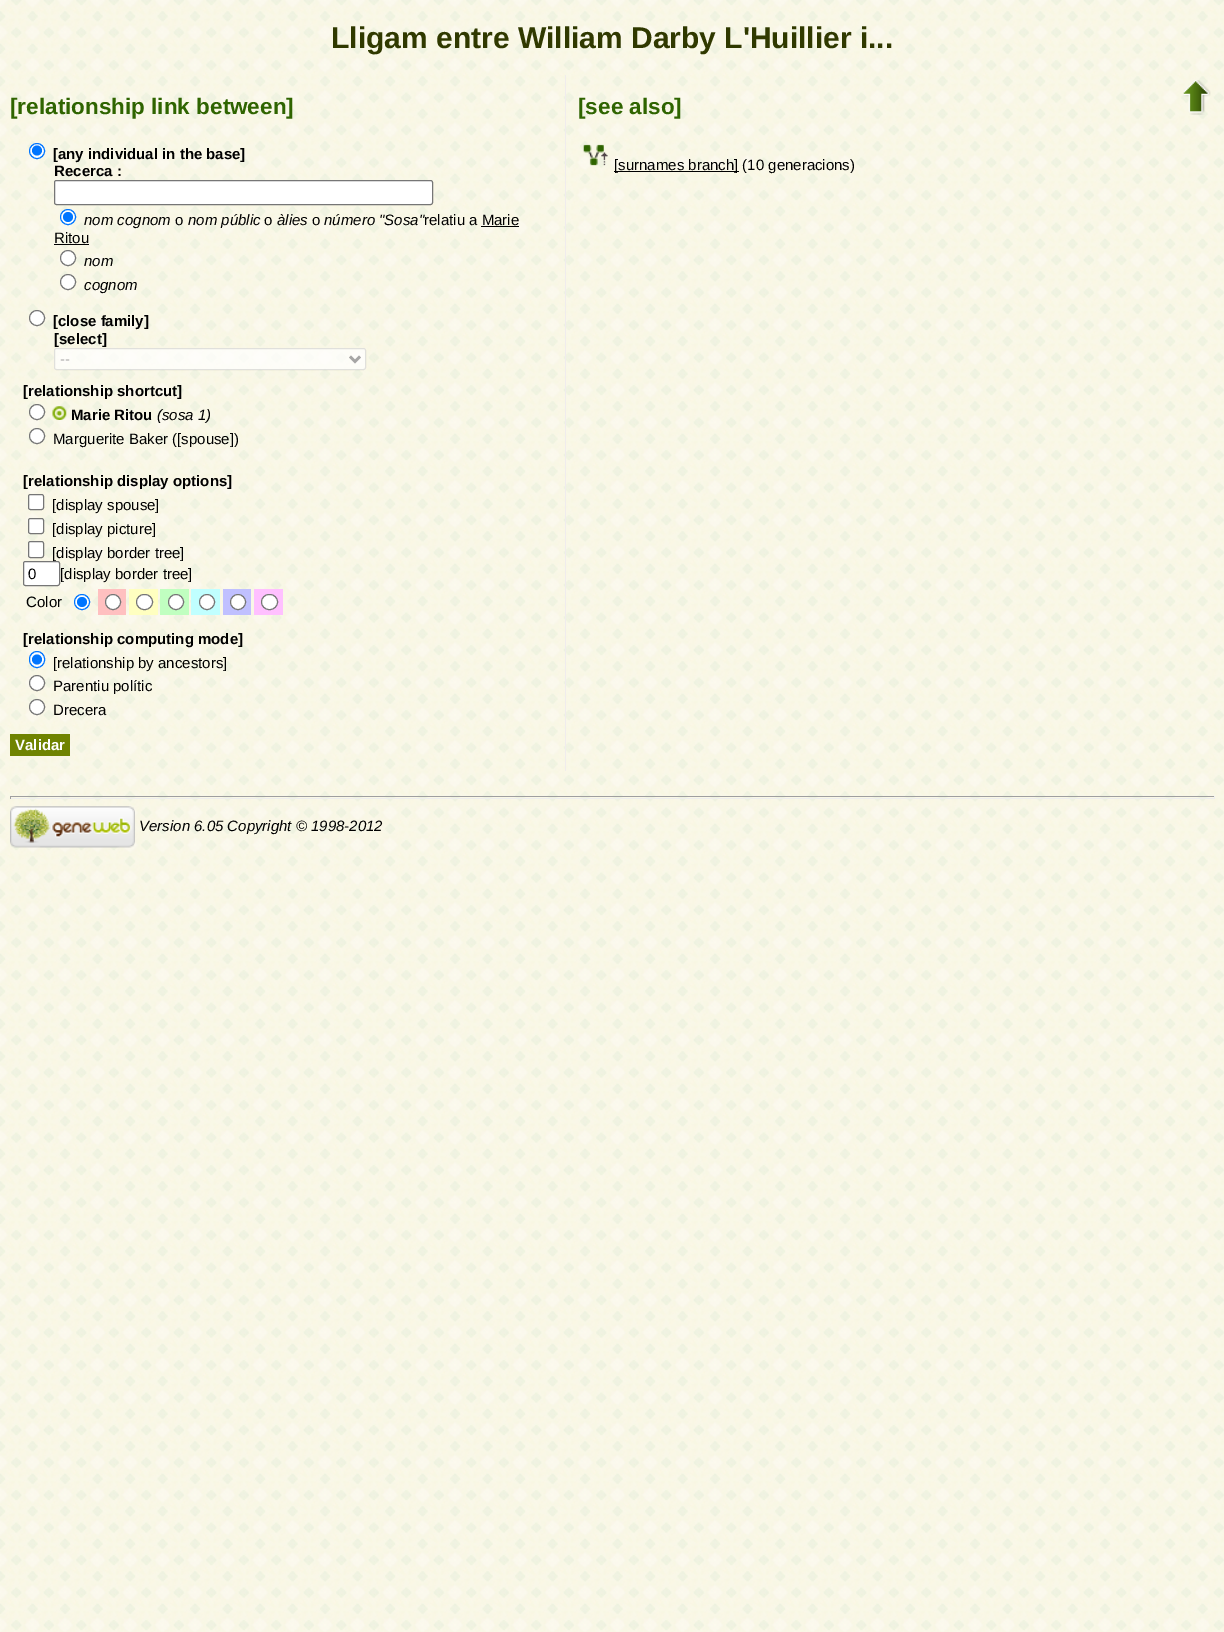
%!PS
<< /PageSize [1224 1632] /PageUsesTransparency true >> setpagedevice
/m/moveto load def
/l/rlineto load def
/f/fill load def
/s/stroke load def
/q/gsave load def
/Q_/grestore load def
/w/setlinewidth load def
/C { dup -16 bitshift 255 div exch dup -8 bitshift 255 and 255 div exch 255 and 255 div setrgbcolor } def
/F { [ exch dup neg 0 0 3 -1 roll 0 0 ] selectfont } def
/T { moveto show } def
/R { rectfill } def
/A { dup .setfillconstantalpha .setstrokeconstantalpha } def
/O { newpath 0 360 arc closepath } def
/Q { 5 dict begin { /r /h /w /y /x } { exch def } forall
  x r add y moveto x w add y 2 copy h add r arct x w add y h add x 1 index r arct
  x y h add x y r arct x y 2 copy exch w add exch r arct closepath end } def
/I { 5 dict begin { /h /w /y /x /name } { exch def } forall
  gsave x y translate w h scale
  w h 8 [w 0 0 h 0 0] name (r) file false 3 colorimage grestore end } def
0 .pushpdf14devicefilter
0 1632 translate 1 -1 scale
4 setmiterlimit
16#FFFFFF C
0 0 1224 1632 R
(1.rgb) 0 0 1224 1632 I
/LiberationSans-Bold 30 F
16#303900 C
(Lligam entre William Darby L'Huillier i...) 331 48 T
16#F0ECED C
565 75 1 696 R
/LiberationSans-Bold 22.5 F
16#2F6400 C
([relationship link between]) 10 114 T
16#FFFFFF C
37 151 7.5 O q f Q_
16#0075FF C
s
37 150.5 5 O f
/LiberationSans-Bold 15 F
16#000000 C
([any individual in the base]) 53 159 T
(Recerca :) 54 176 T
16#FFFFFF C
54.5 180.5 378 24 2 Q q f Q_
16#767676 C
s
16#FFFFFF C
68 217 7.5 O q f Q_
16#0075FF C
s
68 217 5 O f
/LiberationSans-Italic 15 F
16#000000 C
(nom cognom) 84 225 T
/LiberationSans-Regular 15 F
(o) 175 225 T
/LiberationSans-Italic 15 F
(nom públic) 188 225 T
/LiberationSans-Regular 15 F
(o) 264 225 T
/LiberationSans-Italic 15 F
(àlies) 277 225 T
/LiberationSans-Regular 15 F
(o) 312 225 T
/LiberationSans-Italic 15 F
(número "Sosa") 324 225 T
/LiberationSans-Regular 15 F
(relatiu a Marie) 424 225 T
(Ritou) 54 243 T
481 226 38 1 R
54 244 35 1 R
16#FFFFFF C
68 258 7.5 O q f Q_
16#767676 C
s
/LiberationSans-Italic 15 F
16#000000 C
(nom) 84 266 T
16#FFFFFF C
68 282 7.5 O q f Q_
16#767676 C
s
16#000000 C
(cognom) 84 290 T
16#FFFFFF C
37 318 7.5 O q f Q_
16#767676 C
s
/LiberationSans-Bold 15 F
16#000000 C
([close family]) 53 326 T
([select]) 54 344 T
0.7 A
16#FFFFFF C
54 348 312 22 2.5 Q f
0.21 A
16#767676 C
54.5 348.5 311 21 2 Q s
1 A
16#A6A5A4 C
2.5 w
350 356.5 m 5 5 l 5 -5 l s
/LiberationSans-Regular 15 F
(--) 60 364 T
/LiberationSans-Bold 15 F
16#000000 C
([relationship shortcut]) 23 396 T
16#FFFFFF C
37 412 7.5 O q f Q_
16#767676 C
1 w
s
(2.rgb) 52 406 15 14 I
16#000000 C
(Marie Ritou) 71 420 T
/LiberationSans-Italic 15 F
(\(sosa 1\)) 157 420 T
16#FFFFFF C
37 436 7.5 O q f Q_
16#767676 C
s
/LiberationSans-Regular 15 F
16#000000 C
(Marguerite Baker \([spouse]\)) 53 444 T
/LiberationSans-Bold 15 F
([relationship display options]) 23 486 T
16#FFFFFF C
28.5 494.5 15 15 2 Q q f Q_
16#767676 C
s
/LiberationSans-Regular 15 F
16#000000 C
([display spouse]) 52 510 T
16#FFFFFF C
28.5 518.5 15 15 2 Q q f Q_
16#767676 C
s
16#000000 C
([display picture]) 52 534 T
16#FFFFFF C
28.5 541.5 15 16 2 Q q f Q_
16#767676 C
s
16#000000 C
([display border tree]) 52 558 T
16#FFFFFF C
23.5 561.5 36 24 2 Q q f Q_
16#767676 C
s
16#000000 C
(0) 28 579 T
([display border tree]) 60 579 T
(Color) 26 607 T
16#FFFFFF C
82 602 7.5 O q f Q_
16#0075FF C
s
82 602 5 O f
16#FFC0C0 C
98 589 28 26 R
16#FFFFFF C
113 602 7.5 O q f Q_
16#767676 C
s
16#FFFFC0 C
129 589 29 26 R
16#FFFFFF C
136.5 594.5 16 15 7.5 Q q f Q_
16#767676 C
s
16#C0FFC0 C
160 589 29 26 R
16#FFFFFF C
176 602 7.5 O q f Q_
16#767676 C
s
16#C0FFFF C
191 589 29 26 R
16#FFFFFF C
207 602 7.5 O q f Q_
16#767676 C
s
16#C0C0FF C
223 589 28 26 R
16#FFFFFF C
238 602 7.5 O q f Q_
16#767676 C
s
16#FFC0FF C
254 589 29 26 R
16#FFFFFF C
261.5 594.5 16 15 7.5 Q q f Q_
16#767676 C
s
/LiberationSans-Bold 15 F
16#000000 C
([relationship computing mode]) 23 644 T
16#FFFFFF C
29.5 651.5 15 16 7.5 Q q f Q_
16#0075FF C
s
37 659.5 5 O f
/LiberationSans-Regular 15 F
16#000000 C
([relationship by ancestors]) 53 668 T
16#FFFFFF C
37 683 7.5 O q f Q_
16#767676 C
s
16#000000 C
(Parentiu polític) 53 691 T
16#FFFFFF C
37 707 7.5 O q f Q_
16#767676 C
s
16#000000 C
(Drecera) 53 715 T
16#6F8301 C
10 734 60 22 R
/LiberationSans-Bold 15 F
16#FFFFFF C
(Validar) 15 750 T
/LiberationSans-Bold 22.5 F
16#2F6400 C
([see also]) 578 114 T
(3.rgb) 583 144 25 22 I
16#000000 C
614 171 125 1 R
/LiberationSans-Regular 15 F
([surnames branch] \(10 generacions\)) 614 170 T
(4.rgb) 1183 80 28 35 I
16#9F9F9F C
10 796 1205 1 R
16#EEEEEE C
1214 796 1 3 R
10 798 1205 1 R
16#9F9F9F C
10 796 1 3 R
(5.rgb) 10 806 125 42 I
/LiberationSans-Italic 15 F
16#000000 C
(Version 6.05 Copyright © 1998-2012) 139 831 T
.poppdf14devicefilter showpage
